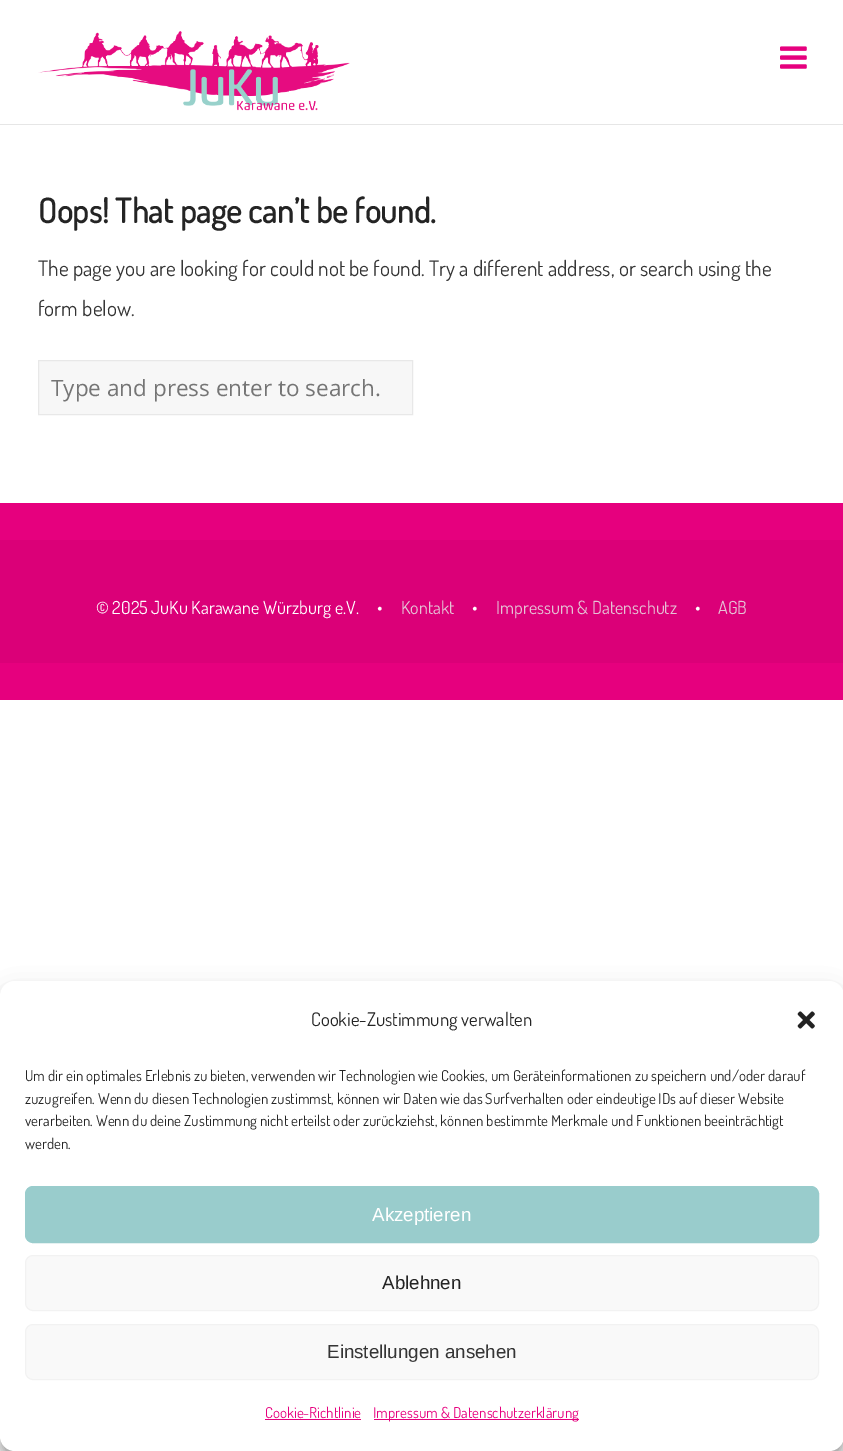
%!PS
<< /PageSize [843 1451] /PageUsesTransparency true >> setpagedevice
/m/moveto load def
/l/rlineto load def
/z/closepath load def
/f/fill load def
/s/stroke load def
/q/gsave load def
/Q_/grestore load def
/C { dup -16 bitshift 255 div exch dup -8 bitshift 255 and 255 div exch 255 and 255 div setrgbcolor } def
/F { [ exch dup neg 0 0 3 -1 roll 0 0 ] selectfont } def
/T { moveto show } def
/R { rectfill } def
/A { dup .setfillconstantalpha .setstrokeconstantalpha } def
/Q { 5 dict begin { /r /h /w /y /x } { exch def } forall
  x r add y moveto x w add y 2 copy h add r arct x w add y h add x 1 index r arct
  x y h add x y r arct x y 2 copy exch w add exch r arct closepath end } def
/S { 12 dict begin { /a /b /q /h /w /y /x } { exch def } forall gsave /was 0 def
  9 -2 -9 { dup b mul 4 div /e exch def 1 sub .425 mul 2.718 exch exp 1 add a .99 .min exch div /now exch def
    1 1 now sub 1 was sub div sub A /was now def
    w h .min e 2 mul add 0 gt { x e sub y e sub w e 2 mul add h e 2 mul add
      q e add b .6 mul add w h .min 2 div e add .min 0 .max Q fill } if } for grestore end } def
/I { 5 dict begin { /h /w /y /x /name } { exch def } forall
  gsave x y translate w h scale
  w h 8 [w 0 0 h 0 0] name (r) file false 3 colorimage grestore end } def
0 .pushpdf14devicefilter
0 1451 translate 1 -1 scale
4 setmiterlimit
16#FFFFFF C
0 0 843 1451 R
16#E6E6E6 C
0 124 m 0 1 l 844 0 l 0 -125 l 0 124 l z f
(1.rgb) 38 31 312 80 I
(2.rgb) 780 46 27 23 I
/Dosis-Bold 33.75 F
16#242424 C
(Oops! That page can’t be found.) 38 223 T
/Dosis-Regular 21.25 F
16#353535 C
(The page you are looking for could not be found. Try a different address, or search using the) 38 276 T
(form below.) 38 316 T
16#F7F7F7 C
38.5 360.5 m 374 0 l 0 54 l -374 0 l z q f Q_
16#E8E8E8 C
s
/OpenSans-Regular 22.5 F
16#757575 C
(Type and press enter to search.) 51 396 T
16#E6007E C
0 503 843 197 R
16#DB0078 C
0 540 843 123 R
/Dosis-Regular 18 F
16#FFFFFF C
(© 2025 JuKu Karawane Würzburg e.V.     •) 96 614 T
16#E5C3D5 C
(Kontakt) 401 614 T
16#FFFFFF C
(•) 472 614 T
16#E5C3D5 C
(Impressum & Datenschutz) 496 614 T
16#FFFFFF C
(•) 695 614 T
16#E5C3D5 C
(AGB) 718 614 T
16#000000 C
0 989 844 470 15 4 .23 S
0 994 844 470 15 12.5 .19 S
16#FFFFFF C
0 981 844 470 15 Q f
/Dosis-Regular 18.75 F
16#242424 C
(Cookie-Zustimmung verwalten) 311 1026 T
(3.rgb) 797 1011 18 18 I
/Dosis-Regular 15 F
(Um dir ein optimales Erlebnis zu bieten, verwenden wir Technologien wie Cookies, um Geräteinformationen zu speichern und/oder darauf) 25 1081 T
(zuzugreifen. Wenn du diesen Technologien zustimmst, können wir Daten wie das Surfverhalten oder eindeutige IDs auf dieser Website) 25 1104 T
(verarbeiten. Wenn du deine Zustimmung nicht erteilst oder zurückziehst, können bestimmte Merkmale und Funktionen beeinträchtigt) 25 1126 T
(werden.) 25 1149 T
16#99CCCC C
25.5 1186.5 793 56 7.5 Q q f Q_
s
/LiberationSans-Regular 18.75 F
16#FFFFFF C
(Akzeptieren) 372 1221 T
16#F9F9F9 C
25.5 1255.5 793 55 7.5 Q q f Q_
16#F2F2F2 C
s
16#242424 C
(Ablehnen) 382 1289 T
16#F9F9F9 C
25.5 1324.5 793 55 7.5 Q q f Q_
16#F2F2F2 C
s
16#353535 C
(Einstellungen ansehen) 327 1358 T
/Dosis-Regular 15 F
16#E6007E C
(Cookie-Richtlinie) 265 1418 T
265 1419 96 1 R
374 1419 205 1 R
(Impressum & Datenschutzerklärung) 373 1418 T
.poppdf14devicefilter showpage
